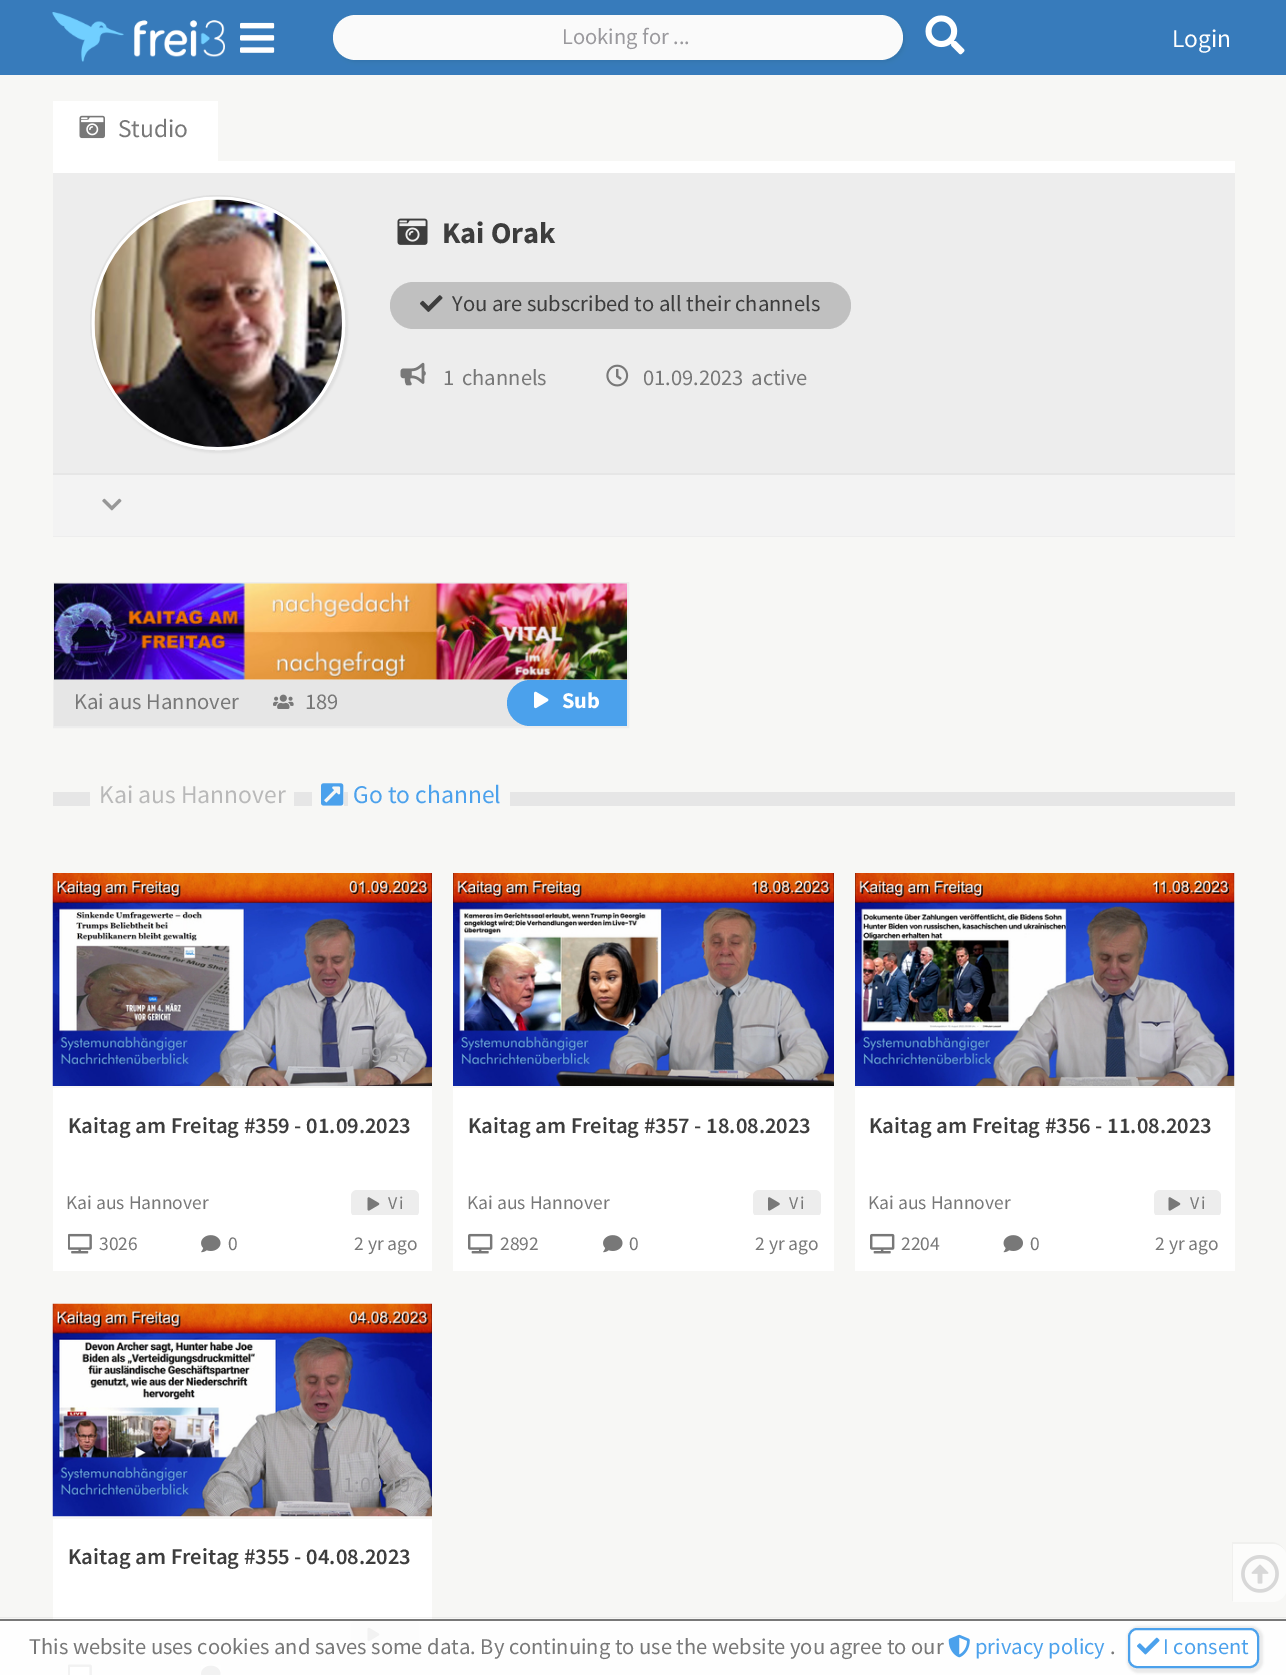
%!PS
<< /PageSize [1286 1675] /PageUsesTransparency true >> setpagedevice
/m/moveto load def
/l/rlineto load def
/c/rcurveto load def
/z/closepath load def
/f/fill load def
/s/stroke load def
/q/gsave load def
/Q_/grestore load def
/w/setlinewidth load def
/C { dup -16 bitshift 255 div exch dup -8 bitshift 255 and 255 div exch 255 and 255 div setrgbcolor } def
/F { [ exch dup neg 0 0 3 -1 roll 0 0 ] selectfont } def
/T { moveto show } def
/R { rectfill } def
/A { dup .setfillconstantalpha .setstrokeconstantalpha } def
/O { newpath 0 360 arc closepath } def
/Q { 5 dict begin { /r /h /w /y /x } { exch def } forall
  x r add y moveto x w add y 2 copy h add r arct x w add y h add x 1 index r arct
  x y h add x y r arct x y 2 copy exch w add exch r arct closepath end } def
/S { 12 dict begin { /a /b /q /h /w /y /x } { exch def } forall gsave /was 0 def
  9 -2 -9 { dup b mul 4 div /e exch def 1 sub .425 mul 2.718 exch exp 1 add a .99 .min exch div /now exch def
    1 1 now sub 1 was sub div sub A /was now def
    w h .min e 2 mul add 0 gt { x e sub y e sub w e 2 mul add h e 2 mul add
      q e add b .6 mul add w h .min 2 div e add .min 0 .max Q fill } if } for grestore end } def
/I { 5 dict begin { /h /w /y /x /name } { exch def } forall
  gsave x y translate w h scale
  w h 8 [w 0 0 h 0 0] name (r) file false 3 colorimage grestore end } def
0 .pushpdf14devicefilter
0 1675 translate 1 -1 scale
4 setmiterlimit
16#F7F7F5 C
0 0 1286 1675 R
16#FEFEFE C
0 1621 1286 54 R
16#377BBB C
0 0 1286 75 R
(1.rgb) 52 12 173 50 I
(2.rgb) 240 22 35 31 I
16#000000 C
335 17 570 45 22.5 2 .07 S
16#FAFAFA C
333 15 570 45 22.5 Q f
/SourceSansPro-Regular 22.5 F
16#9A999D C
(Looking for ...) 562 44 T
(3.rgb) 925 15 40 40 I
/SourceSansPro-Regular 25.5 F
16#FFFFFF C
(Login) 1172 47 T
53 101 165 60 R
(4.rgb) 79 115 26 24 I
16#787878 C
(Studio) 118 137 T
16#EDEDED C
53 173 1182 300 R
16#FFFFFF C
53 161 1182 12 R
16#E1E1E1 C
217 195 m -70 0 -127 57 -127 127 c 0 42 20 79 52 102 c -61 -46 -68 -136 -13 -190 c 54 -55 144 -48 190 13 c -23 -32 -60 -52 -102 -52 c z f
16#000000 C
92 197 256 256 128 1 .06 S
(5.rgb) 91 196 254 254 I
16#FFFFFF C
3 w
218.5 323.5 125 O s
218.5 323.5 123.5 O f
(6.rgb) 94 199 248 248 I
(7.rgb) 397 218 31 27 I
/SourceSansPro-Bold 30 F
16#3D3D3D C
(Kai Orak) 442 243 T
16#C0C0C0 C
390 282 461 47 23.5 Q f
(8.rgb) 420 295 23 17 I
/SourceSansPro-Regular 22.5 F
16#3D3D3D C
(You are subscribed to all their channels) 452 311 T
(9.rgb) 400 362 26 24 I
16#787878 C
(1) 443 385 T
(channels) 462 385 T
(10.rgb) 606 364 23 23 I
(01.09.2023) 643 385 T
(active) 751 385 T
16#F3F3F3 C
53 475 1182 61 R
16#E6E6E6 C
53 473 1182 2 R
16#EDEDED C
53 536 1182 1 R
(11.rgb) 102 498 20 13 I
2 w
54 583 574 144 rectstroke
(12.rgb) 54 583 573 97 I
16#E6E6E6 C
54 680 476 46 R
16#787878 C
(Kai aus Hannover) 74 709 T
(13.rgb) 273 694 21 15 I
(189) 305 709 T
16#4BA1EC C
530 680 m 97 0 l 0 46 l -97 0 l -12.5 0 -23 -10.5 -23 -23 c 0 -12.5 10.5 -23 23 -23 c z f
(14.rgb) 534 691 15 18 I
/SourceSansPro-Bold 22.5 F
16#FFFFFF C
(Sub) 562 708 T
16#E6E6E6 C
53 792 1182 14 R
16#F7F7F5 C
90 792 204 14 R
/SourceSansPro-Regular 25.5 F
16#B9B9B9 C
(Kai aus Hannover) 99 803 T
16#F7F7F5 C
312 792 32 14 R
348 792 162 14 R
(15.rgb) 321 783 23 23 I
16#4BA1EC C
(Go to channel) 353 803 T
16#FFFFFF C
53 1088 379 183 R
(16.rgb) 52 873 380 213 I
/SourceSansPro-Regular 22.5 F
16#A2A2A5 C
(59:57) 360 1062 T
/SourceSansPro-SemiBold 22.5 F
16#3D3D3D C
(Kaitag am Freitag #359 - 01.09.2023) 68 1133 T
/SourceSansPro-Regular 19.5 F
16#787878 C
(Kai aus Hannover) 66 1209 T
q
53 1187 379 28 rectclip
16#EDEDED C
351 1190 68 27 6 Q f
Q_
(17.rgb) 367 1197 13 14 I
/SourceSansPro-Regular 18 F
388 1209 m 2 0 (Vi) ashow
(18.rgb) 68 1233 24 21 I
/SourceSansPro-Regular 19.5 F
(3026) 99 1250 T
(19.rgb) 201 1235 20 18 I
(0) 228 1250 T
(2 yr ago) 354 1250 T
16#FFFFFF C
453 1088 381 183 R
(20.rgb) 453 873 381 213 I
/SourceSansPro-SemiBold 22.5 F
16#3D3D3D C
(Kaitag am Freitag #357 - 18.08.2023) 468 1133 T
/SourceSansPro-Regular 19.5 F
16#787878 C
(Kai aus Hannover) 467 1209 T
q
453 1187 381 28 rectclip
16#EDEDED C
753 1190 68 27 6 Q f
Q_
(21.rgb) 768 1197 12 14 I
/SourceSansPro-Regular 18 F
789 1209 m 2 0 (Vi) ashow
(22.rgb) 468 1233 25 21 I
/SourceSansPro-Regular 19.5 F
(2892) 500 1250 T
(19.rgb) 603 1235 20 18 I
(0) 629 1250 T
(2 yr ago) 755 1250 T
16#FFFFFF C
855 873 380 398 R
16#F7F7F5 C
855 1086 380 2 R
(23.rgb) 855 873 380 213 I
/SourceSansPro-SemiBold 22.5 F
16#3D3D3D C
(Kaitag am Freitag #356 - 11.08.2023) 869 1133 T
/SourceSansPro-Regular 19.5 F
16#787878 C
(Kai aus Hannover) 868 1209 T
q
855 1187 380 28 rectclip
16#EDEDED C
1154 1190 67 27 6 Q f
Q_
(17.rgb) 1168 1197 13 14 I
/SourceSansPro-Regular 18 F
1190 1209 m 2 0 (Vi) ashow
(22.rgb) 870 1233 25 21 I
/SourceSansPro-Regular 19.5 F
(2204) 901 1250 T
(24.rgb) 1003 1235 20 18 I
(0) 1030 1250 T
(2 yr ago) 1155 1250 T
16#FFFFFF C
53 1516 379 103 R
16#F7F7F5 C
53 1517 379 2 R
(25.rgb) 52 1303 380 214 I
/SourceSansPro-Regular 22.5 F
16#9A999D C
(1:00:19) 343 1492 T
/SourceSansPro-SemiBold 22.5 F
16#3D3D3D C
(Kaitag am Freitag #355 - 04.08.2023) 68 1564 T
q
53 1617 379 29 rectclip
16#FDFDFD C
351 1620 68 27 6 Q f
Q_
(26.rgb) 367 1627 13 15 I
(27.rgb) 68 1664 24 11 I
(28.rgb) 201 1665 20 10 I
16#F0F0EE C
1232 1542 m 0 59 l 1 0 l 0 -57 l 39 0 l 5 0 9 2 12 5 c -3 -4 -7 -7 -13 -7 c z f
16#FCFCFB C
1233 1544 m 39 0 l 8.5 0 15 6.5 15 15 c 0 28 l 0 8.5 -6.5 15 -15 15 c -39 0 l z f
(29.rgb) 1241 1555 38 38 I
0.05 A
16#000000 C
-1 1617 m 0 57 l 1 0 l 0 -56 l 1286 0 l 0 -1 l z f
1 A
16#787878 C
0 1619 1286 2 R
/SourceSansPro-Regular 22.5 F
(This website uses cookies and saves some data. By continuing to use the website you agree to our) 29 1654 T
(30.rgb) 948 1634 22 24 I
16#4BA1EC C
(privacy policy) 975 1654 T
16#787878 C
(.) 1110 1654 T
16#000000 C
1127 1626 136 47 12 1 .07 S
16#FFFFFF C
1129 1629 129 38 8 Q q f Q_
16#4BA1EC C
s
(31.rgb) 1137 1637 23 18 I
(I consent) 1163 1654 T
.poppdf14devicefilter showpage
